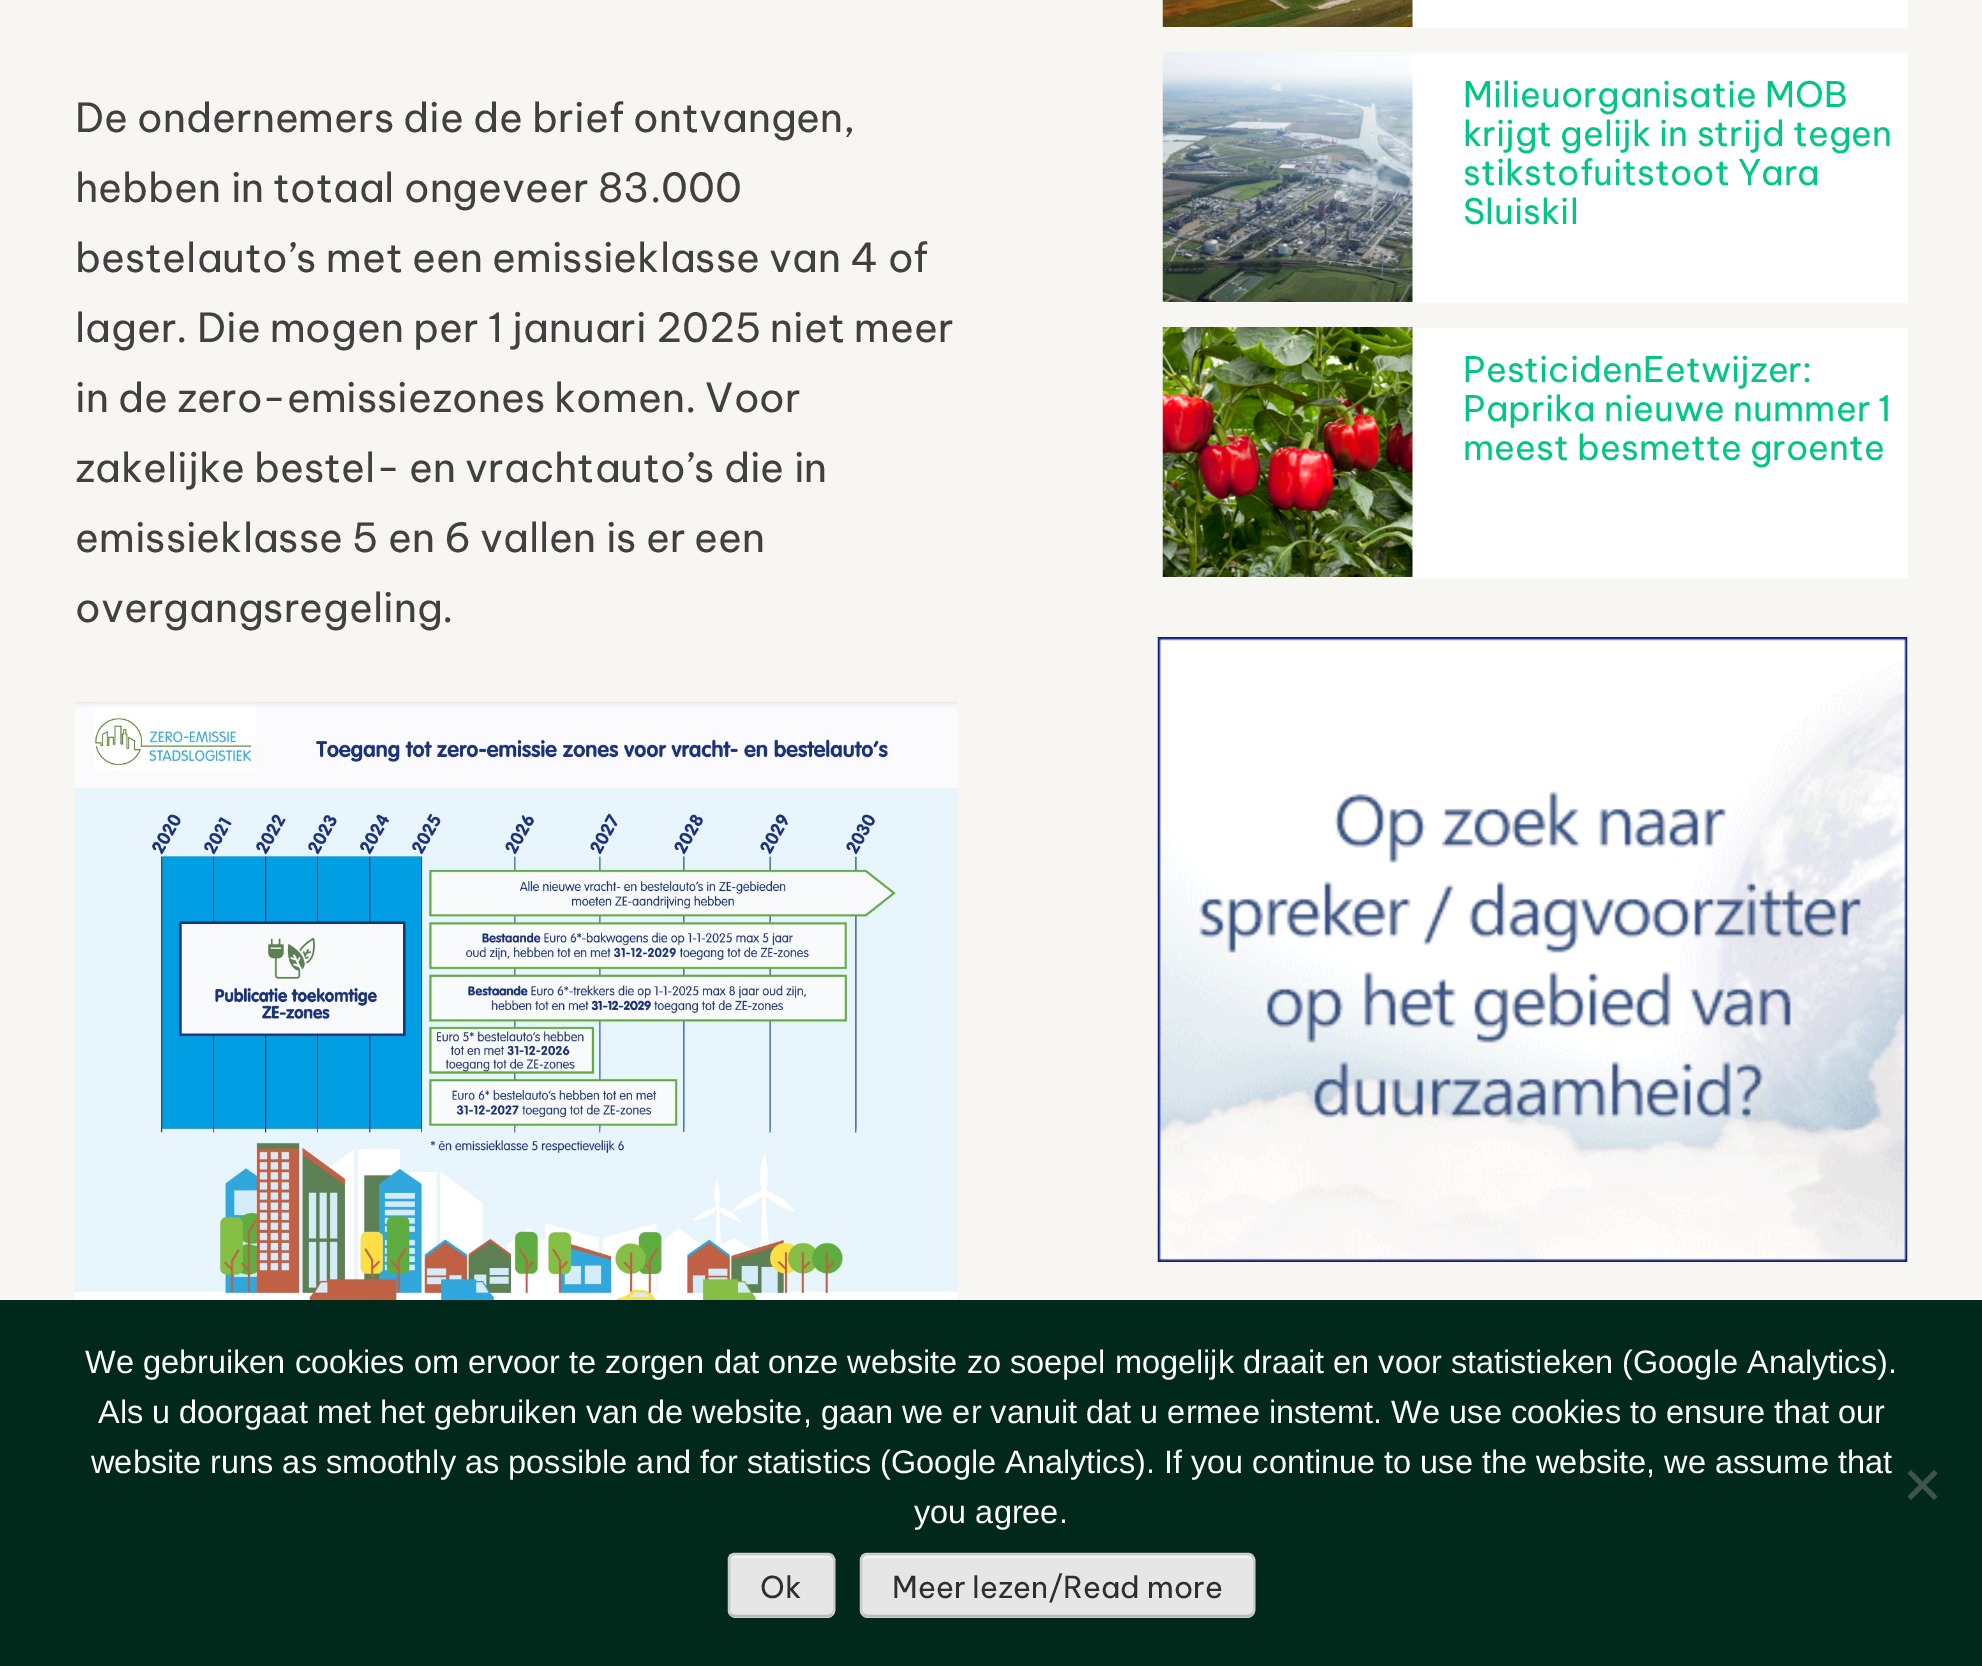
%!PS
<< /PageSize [1982 1666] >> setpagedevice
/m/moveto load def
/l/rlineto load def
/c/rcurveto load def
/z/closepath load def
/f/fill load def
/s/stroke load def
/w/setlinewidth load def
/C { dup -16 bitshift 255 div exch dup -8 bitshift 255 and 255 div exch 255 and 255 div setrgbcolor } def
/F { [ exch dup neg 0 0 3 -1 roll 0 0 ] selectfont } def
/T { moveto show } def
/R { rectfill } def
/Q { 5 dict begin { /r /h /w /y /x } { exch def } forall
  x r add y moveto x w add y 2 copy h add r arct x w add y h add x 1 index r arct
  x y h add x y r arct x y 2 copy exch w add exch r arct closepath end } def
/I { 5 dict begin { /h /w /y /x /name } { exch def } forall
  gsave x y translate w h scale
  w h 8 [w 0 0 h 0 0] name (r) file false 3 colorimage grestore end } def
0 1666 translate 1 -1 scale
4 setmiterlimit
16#F7F6F2 C
0 0 1982 1666 R
/BeVietnamPro-Regular 40 F
16#404040 C
(De ondernemers die de brief ontvangen,) 75 132 T
(hebben in totaal ongeveer 83.000) 75 202 T
(bestelauto’s met een emissieklasse van 4 of) 75 272 T
(lager. Die mogen per 1 januari 2025 niet meer) 75 342 T
(in de zero-emissiezones komen. Voor) 75 412 T
(zakelijke bestel- en vrachtauto’s die in) 75 482 T
(emissieklasse 5 en 6 vallen is er een) 75 552 T
(overgangsregeling.) 75 622 T
(1.rgb) 75 702 883 598 I
16#FFFFFF C
1163 0 745 28 R
(2.rgb) 1162 0 251 27 I
1163 53 745 250 R
(3.rgb) 1162 52 251 250 I
/BeVietnamPro-Regular 35 F
16#00C785 C
(Milieuorganisatie MOB) 1463 107 T
(krijgt gelijk in strijd tegen) 1463 146 T
(stikstofuitstoot Yara) 1463 185 T
(Sluiskil) 1463 224 T
16#FFFFFF C
1163 328 745 250 R
(4.rgb) 1162 327 251 250 I
16#00C785 C
(PesticidenEetwijzer:) 1463 382 T
(Paprika nieuwe nummer 1) 1463 421 T
(meest besmette groente) 1463 460 T
(5.rgb) 1157 637 751 625 I
16#00281B C
0 1300 1982 366 R
/LiberationSans-Regular 32.5 F
16#FFFFFF C
(We gebruiken cookies om ervoor te zorgen dat onze website zo soepel mogelijk draait en voor statistieken \(Google Analytics\).) 85 1373 T
(Als u doorgaat met het gebruiken van de website, gaan we er vanuit dat u ermee instemt. We use cookies to ensure that our) 98 1423 T
(website runs as smoothly as possible and for statistics \(Google Analytics\). If you continue to use the website, we assume that) 91 1473 T
(you agree.) 914 1523 T
16#40544E C
1934 1470 m 3.5 3.5 l -26.5 26.5 l -3.5 -3.5 l z f
1907.5 1473.5 m 3.5 -3.5 l 26.5 26.5 l -3.5 3.5 l z f
16#E6E6E6 C
728 1553 107 65 8 Q f
16#F3F3F3 C
735 1558 m 77 0 l 24 0 20 -3 20 21 c 0 34 l 1 -1 1 -2 1 -3 c 0 -50 l 0 -3 -2 -5 -5 -5 c -93 0 l -3 0 -5 2 -5 5 c 0 2 l 0 -2 2 -4 5 -4 c z f
16#BBBBBB C
2.5 w
832 1614.5 m -1.5 1 -3 1.5 -4.5 1.5 c -92.5 0 l -1.5 0 -3 -.5 -4.5 -1.5 c s
16#CCCCCC C
730.5 1614.5 m -1 -1.5 -1.5 -3 -1.5 -4.5 c 0 -50 l 0 -1.5 .5 -3 1.5 -4.5 c 1.5 -1 3 -1.5 4.5 -1.5 c 92.5 0 l 1.5 0 3 .5 4.5 1.5 c 1 1.5 2 3 2 4.5 c 0 50 l 0 1.5 -1 3 -2 4.5 c s
/BeVietnamPro-Regular 30 F
16#2E2E2E C
(Ok) 760 1598 T
16#E6E6E6 C
860 1553 395 65 8 Q f
16#F3F3F3 C
868 1558 m 380 0 l 2 0 4 2 4 4 c 0 51 l 1 -1 1 -2 1 -3 c 0 -50 l 0 -3 -2 -5 -5 -5 c -380 0 l -3 0 -5 2 -5 5 c 1 -1 3 -2 5 -2 c z f
16#BBBBBB C
1252 1614.5 m -1.5 1 -3 1.5 -4.5 1.5 c -380 0 l -1.5 0 -3 -.5 -4.5 -1.5 c s
16#CCCCCC C
863 1614.5 m -1 -1.5 -2 -3 -2 -4.5 c 0 -50 l 0 -1.5 1 -3 2 -4.5 c 1.5 -1 3 -1.5 4.5 -1.5 c 380 0 l 1.5 0 3 .5 4.5 1.5 c 1 1.5 2 3 2 4.5 c 0 50 l 0 1.5 -1 3 -2 4.5 c s
16#2E2E2E C
(Meer lezen/Read more) 892 1598 T
showpage
